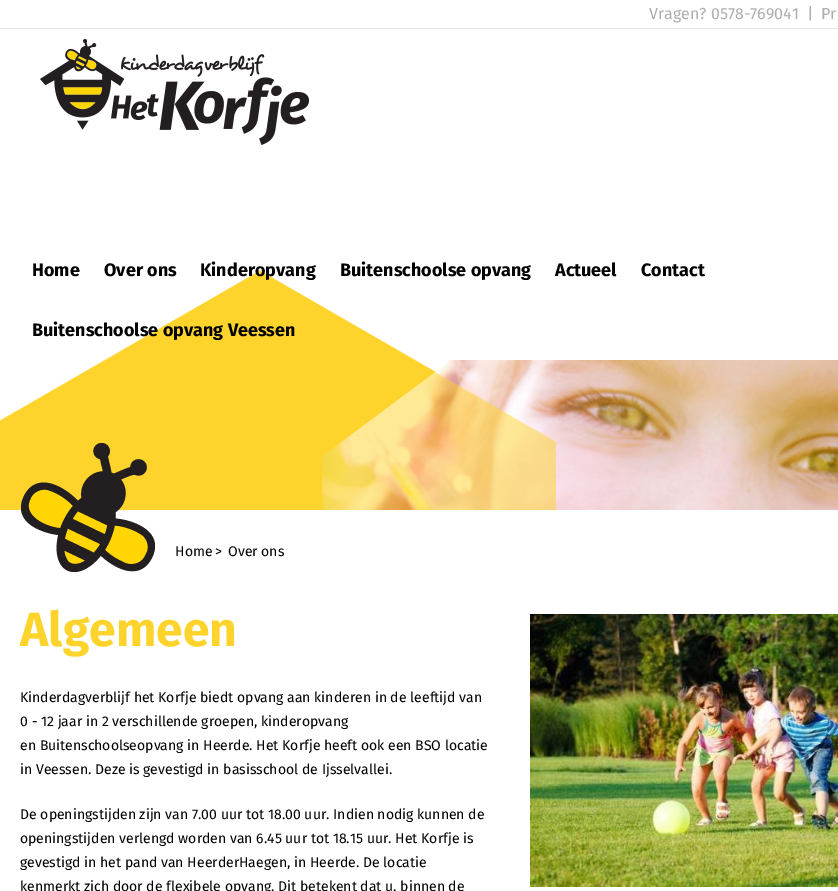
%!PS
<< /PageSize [838 891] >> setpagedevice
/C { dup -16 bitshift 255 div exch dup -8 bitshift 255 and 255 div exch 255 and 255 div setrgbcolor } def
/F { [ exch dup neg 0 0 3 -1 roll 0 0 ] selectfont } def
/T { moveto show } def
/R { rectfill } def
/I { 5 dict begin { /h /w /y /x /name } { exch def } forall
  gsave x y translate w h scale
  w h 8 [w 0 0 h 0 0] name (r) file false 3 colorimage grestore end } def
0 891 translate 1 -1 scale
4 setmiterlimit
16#FFFFFF C
0 0 838 891 R
16#E7E7E7 C
0 28 838 1 R
/FiraSans-Regular 16 F
16#ADADAD C
(Vragen? 0578-769041  |) 649 19 T
(Pr) 821 19 T
(1.rgb) 40 39 269 106 I
(2.rgb) 322 360 516 150 I
(3.rgb) 0 270 556 240 I
/FiraSans-Bold 18 F
16#010101 C
(Home) 32 276 T
(Over ons) 104 276 T
(Kinderopvang) 200 276 T
(Buitenschoolse opvang) 340 276 T
(Actueel) 555 276 T
(Contact) 641 276 T
(Buitenschoolse opvang Veessen) 32 336 T
(4.rgb) 21 443 134 129 I
/FiraSans-Regular 14 F
(Home) 175 556 T
(>) 215 556 T
(Over ons) 228 556 T
/FiraSans-Bold 48 F
16#FED42C C
(Algemeen) 20 646 T
/FiraSans-Regular 14 F
16#010101 C
(Kinderdagverblijf het Korfje biedt opvang aan kinderen in de leeftijd van) 20 702 T
(0 - 12 jaar in 2 verschillende groepen, kinderopvang) 20 726 T
(en Buitenschoolseopvang in Heerde. Het Korfje heeft ook een BSO locatie) 20 750 T
(in Veessen. Deze is gevestigd in basisschool de Ijsselvallei.) 20 774 T
(De openingstijden zijn van 7.00 uur tot 18.00 uur. Indien nodig kunnen de) 20 819 T
(openingstijden verlengd worden van 6.45 uur tot 18.15 uur. Het Korfje is) 20 843 T
(gevestigd in het pand van HeerderHaegen, in Heerde. De locatie) 20 867 T
(kenmerkt zich door de flexibele opvang. Dit betekent dat u, binnen de) 20 891 T
(5.rgb) 530 614 308 273 I
showpage
